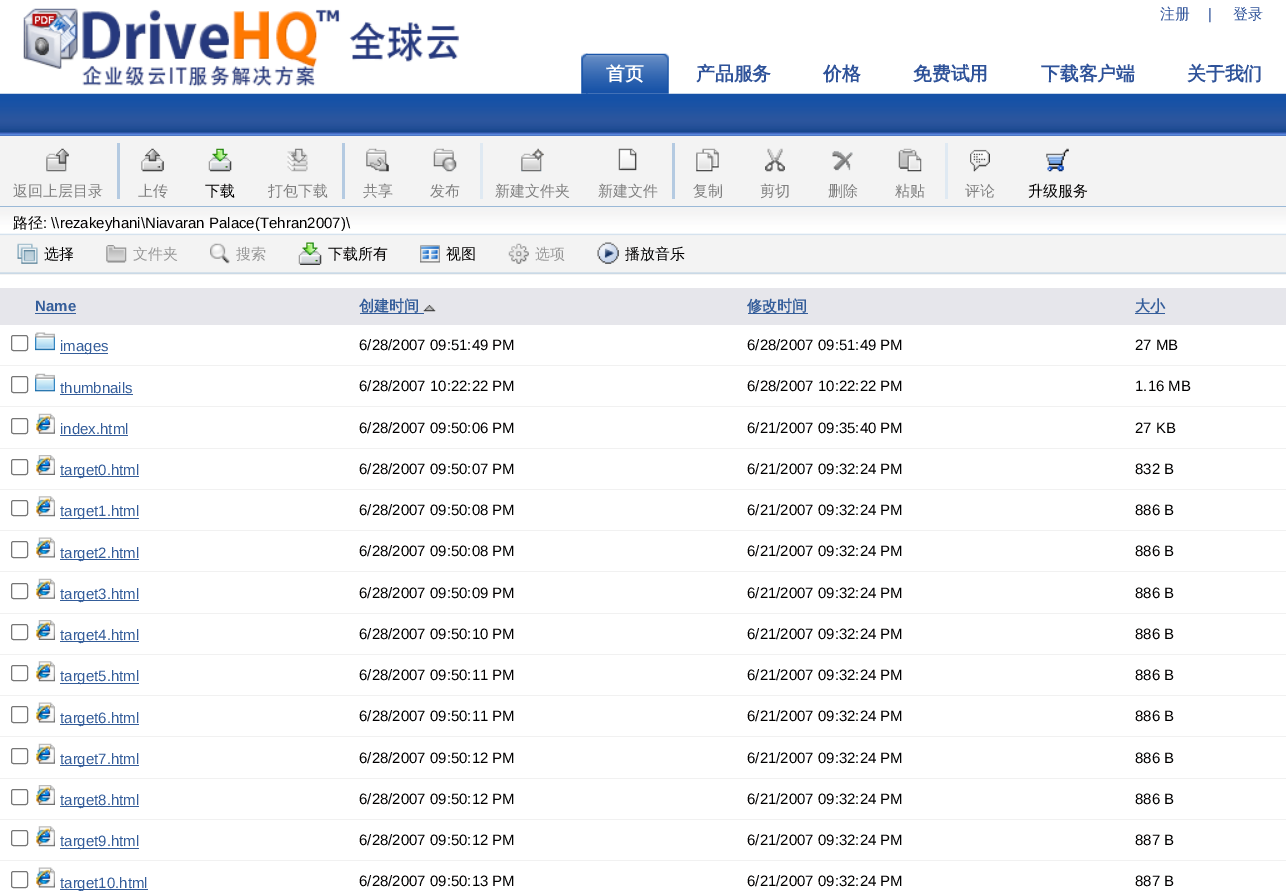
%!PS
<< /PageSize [1286 891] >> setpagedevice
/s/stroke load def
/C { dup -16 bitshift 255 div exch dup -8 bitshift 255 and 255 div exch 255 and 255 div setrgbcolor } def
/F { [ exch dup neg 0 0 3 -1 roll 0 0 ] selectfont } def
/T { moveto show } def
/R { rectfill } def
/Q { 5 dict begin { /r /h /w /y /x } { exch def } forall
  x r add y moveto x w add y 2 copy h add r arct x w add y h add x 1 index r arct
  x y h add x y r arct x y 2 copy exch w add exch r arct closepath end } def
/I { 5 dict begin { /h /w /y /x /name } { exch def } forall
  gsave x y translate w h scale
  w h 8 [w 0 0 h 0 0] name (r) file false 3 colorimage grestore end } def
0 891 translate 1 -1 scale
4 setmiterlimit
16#FFFFFF C
0 0 1286 891 R
(1.rgb) 0 93 1286 43 I
(2.rgb) 23 8 436 79 I
/WenQuanYiZenHei-Medium 15 F
16#2E5299 C
(注册) 1160 19 T
/LiberationSans-Regular 15 F
(|) 1208 19 T
/WenQuanYiZenHei-Medium 15 F
(登录) 1233 19 T
(3.rgb) 581 53 7 41 I
(4.rgb) 586 53 83 41 I
/WenQuanYiZenHei-Bold 18.75 F
16#FFFFFF C
(首页) 606 80 T
16#2E5299 C
(产品服务) 696 80 T
(价格) 823 80 T
(免费试用) 913 80 T
(下载客户端) 1041 80 T
(关于我们) 1187 80 T
16#F3F3F3 C
0 136 1286 72 R
16#9BB9D7 C
0 206 1286 1 R
(5.rgb) 46 148 23 24 I
/WenQuanYiZenHei-Medium 15 F
16#808080 C
(返回上层目录) 13 196 T
16#B4CAE1 C
117 143 3 56 R
(6.rgb) 141 148 23 24 I
16#808080 C
(上传) 138 196 T
(7.rgb) 208 148 24 24 I
16#010000 C
(下载) 205 196 T
(8.rgb) 287 148 21 24 I
16#808080 C
(打包下载) 268 196 T
16#B4CAE1 C
342 143 3 56 R
(9.rgb) 366 148 23 24 I
16#808080 C
(共享) 363 196 T
(10.rgb) 433 148 24 24 I
(发布) 430 196 T
16#DFE9F2 C
480 143 3 56 R
(11.rgb) 521 148 23 24 I
16#808080 C
(新建文件夹) 495 196 T
(12.rgb) 618 148 19 23 I
(新建文件) 598 196 T
16#B4CAE1 C
672 143 3 56 R
(13.rgb) 696 148 23 24 I
16#808080 C
(复制) 693 196 T
(14.rgb) 765 148 20 24 I
(剪切) 760 196 T
(15.rgb) 832 151 21 20 I
(删除) 828 196 T
(16.rgb) 898 148 24 24 I
(粘贴) 895 196 T
16#DFE9F2 C
945 143 3 56 R
(17.rgb) 970 149 20 23 I
16#808080 C
(评论) 965 196 T
(18.rgb) 1046 148 23 24 I
16#010000 C
(升级服务) 1028 196 T
(19.rgb) 0 208 1286 67 I
(路径) 13 228 T
/LiberationSans-Regular 15 F
(: \\\\rezakeyhani\\Niavaran Palace\(Tehran2007\)\\) 43 228 T
(20.rgb) 17 243 21 21 I
/WenQuanYiZenHei-Medium 15 F
(选择) 44 259 T
(21.rgb) 106 245 21 18 I
16#999999 C
(文件夹) 133 259 T
(22.rgb) 210 243 20 21 I
(搜索) 236 259 T
(23.rgb) 298 242 24 23 I
16#010000 C
(下载所有) 328 259 T
(24.rgb) 420 245 20 18 I
(视图) 446 259 T
(25.rgb) 508 243 21 21 I
16#999999 C
(选项) 535 259 T
(26.rgb) 597 242 22 22 I
16#010000 C
(播放音乐) 625 259 T
16#E6E6EB C
0 288 1286 37 R
/LiberationSans-Bold 15 F
16#345D9A C
(Name) 35 311 T
35 313 41 1 R
/WenQuanYiZenHei-Bold 15 F
(创建时间) 359 311 T
360 313 64 1 R
(27.rgb) 423 305 13 7 I
748 313 60 1 R
(修改时间) 747 311 T
(大小) 1135 311 T
1135 313 30 1 R
16#F1F1F1 C
0 365 1286 1 R
16#767676 C
11.5 335.5 16 15 2 Q s
(28.rgb) 35 332 20 19 I
16#345D9A C
60 353 48 1 R
/LiberationSans-Regular 15 F
(images) 60 351 T
16#010000 C
(6/28/2007 09:51:49 PM) 359 350 T
(6/28/2007 09:51:49 PM) 747 350 T
(27 MB) 1135 350 T
16#F1F1F1 C
0 406 1286 1 R
16#767676 C
11.5 376.5 16 16 2 Q s
(29.rgb) 35 373 20 19 I
16#345D9A C
(thumbnails) 60 393 T
60 394 73 1 R
16#010000 C
(6/28/2007 10:22:22 PM) 359 391 T
(6/28/2007 10:22:22 PM) 747 391 T
(1.16 MB) 1135 391 T
16#F1F1F1 C
0 448 1286 1 R
16#767676 C
11.5 418.5 16 15 2 Q s
(30.rgb) 36 413 19 21 I
16#345D9A C
(index.html) 60 434 T
60 435 68 1 R
16#010000 C
(6/28/2007 09:50:06 PM) 359 433 T
(6/21/2007 09:35:40 PM) 747 433 T
(27 KB) 1135 433 T
16#F1F1F1 C
0 489 1286 1 R
16#767676 C
11.5 459.5 16 15 2 Q s
(31.rgb) 36 455 19 20 I
16#345D9A C
60 476 79 1 R
(target0.html) 60 475 T
16#010000 C
(6/28/2007 09:50:07 PM) 359 474 T
(6/21/2007 09:32:24 PM) 747 474 T
(832 B) 1135 474 T
16#F1F1F1 C
0 530 1286 1 R
16#767676 C
11.5 500.5 16 15 2 Q s
(32.rgb) 36 496 19 21 I
16#345D9A C
60 518 79 1 R
(target1.html) 60 516 T
16#010000 C
(6/28/2007 09:50:08 PM) 359 515 T
(6/21/2007 09:32:24 PM) 747 515 T
(886 B) 1135 515 T
16#F1F1F1 C
0 571 1286 1 R
16#767676 C
11.5 541.5 16 16 2 Q s
(33.rgb) 36 537 19 21 I
16#345D9A C
60 559 79 1 R
(target2.html) 60 558 T
16#010000 C
(6/28/2007 09:50:08 PM) 359 556 T
(6/21/2007 09:32:24 PM) 747 556 T
(886 B) 1135 556 T
16#F1F1F1 C
0 613 1286 1 R
16#767676 C
11.5 583.5 16 15 2 Q s
(34.rgb) 36 578 19 21 I
16#345D9A C
60 600 79 1 R
(target3.html) 60 599 T
16#010000 C
(6/28/2007 09:50:09 PM) 359 598 T
(6/21/2007 09:32:24 PM) 747 598 T
(886 B) 1135 598 T
16#F1F1F1 C
0 654 1286 1 R
16#767676 C
11.5 624.5 16 15 2 Q s
(31.rgb) 36 620 19 20 I
16#345D9A C
60 641 79 1 R
(target4.html) 60 640 T
16#010000 C
(6/28/2007 09:50:10 PM) 359 639 T
(6/21/2007 09:32:24 PM) 747 639 T
(886 B) 1135 639 T
16#F1F1F1 C
0 695 1286 1 R
16#767676 C
11.5 665.5 16 15 2 Q s
(32.rgb) 36 661 19 21 I
16#345D9A C
60 683 79 1 R
(target5.html) 60 681 T
16#010000 C
(6/28/2007 09:50:11 PM) 359 680 T
(6/21/2007 09:32:24 PM) 747 680 T
(886 B) 1135 680 T
16#F1F1F1 C
0 736 1286 1 R
16#767676 C
11.5 706.5 16 16 2 Q s
(33.rgb) 36 702 19 21 I
16#345D9A C
60 724 79 1 R
(target6.html) 60 723 T
16#010000 C
(6/28/2007 09:50:11 PM) 359 721 T
(6/21/2007 09:32:24 PM) 747 721 T
(886 B) 1135 721 T
16#F1F1F1 C
0 778 1286 1 R
16#767676 C
11.5 748.5 16 15 2 Q s
(30.rgb) 36 743 19 21 I
16#345D9A C
60 765 79 1 R
(target7.html) 60 764 T
16#010000 C
(6/28/2007 09:50:12 PM) 359 763 T
(6/21/2007 09:32:24 PM) 747 763 T
(886 B) 1135 763 T
16#F1F1F1 C
0 819 1286 1 R
16#767676 C
11.5 789.5 16 15 2 Q s
(31.rgb) 36 785 19 20 I
16#345D9A C
60 806 79 1 R
(target8.html) 60 805 T
16#010000 C
(6/28/2007 09:50:12 PM) 359 804 T
(6/21/2007 09:32:24 PM) 747 804 T
(886 B) 1135 804 T
16#F1F1F1 C
0 860 1286 1 R
16#767676 C
11.5 830.5 16 15 2 Q s
(32.rgb) 36 826 19 21 I
16#345D9A C
60 848 79 1 R
(target9.html) 60 846 T
16#010000 C
(6/28/2007 09:50:12 PM) 359 845 T
(6/21/2007 09:32:24 PM) 747 845 T
(887 B) 1135 845 T
16#767676 C
11.5 871.5 16 16 2 Q s
(33.rgb) 36 867 19 21 I
16#345D9A C
60 889 88 1 R
(target10.html) 60 888 T
16#010000 C
(6/28/2007 09:50:13 PM) 359 886 T
(6/21/2007 09:32:24 PM) 747 886 T
(887 B) 1135 886 T
showpage
